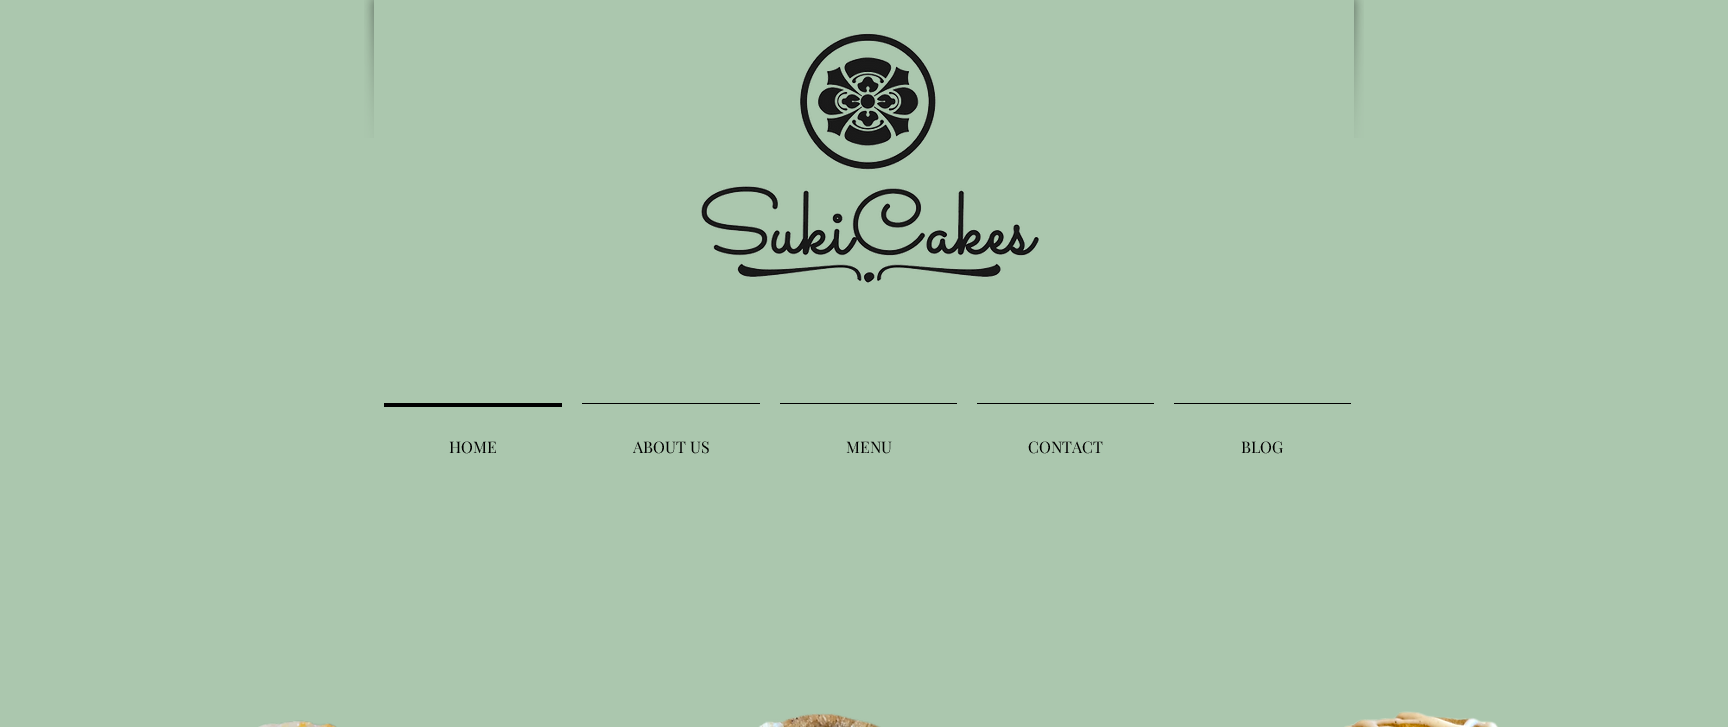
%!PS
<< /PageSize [1728 727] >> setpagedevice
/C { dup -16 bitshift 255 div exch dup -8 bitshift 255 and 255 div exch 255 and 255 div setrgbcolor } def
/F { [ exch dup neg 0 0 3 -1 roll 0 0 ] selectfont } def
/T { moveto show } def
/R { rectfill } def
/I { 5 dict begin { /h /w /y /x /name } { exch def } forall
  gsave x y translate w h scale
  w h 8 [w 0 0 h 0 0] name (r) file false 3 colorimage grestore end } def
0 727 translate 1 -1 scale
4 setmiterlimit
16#ABC7AE C
0 0 1728 727 R
(1.rgb) 364 0 10 138 I
(2.rgb) 1354 0 10 138 I
(3.rgb) 701 33 339 250 I
16#000000 C
384 403 178 4 R
/PlayfairDisplay-Regular 16 F
(HOME) 449 453 T
582 403 178 1 R
(ABOUT US) 633 453 T
780 403 177 1 R
(MENU) 846 453 T
977 403 177 1 R
(CONTACT) 1028 453 T
1174 403 177 1 R
(BLOG) 1241 453 T
(4.rgb) 258 720 79 7 I
(5.rgb) 758 713 123 14 I
(6.rgb) 1344 711 155 16 I
showpage
